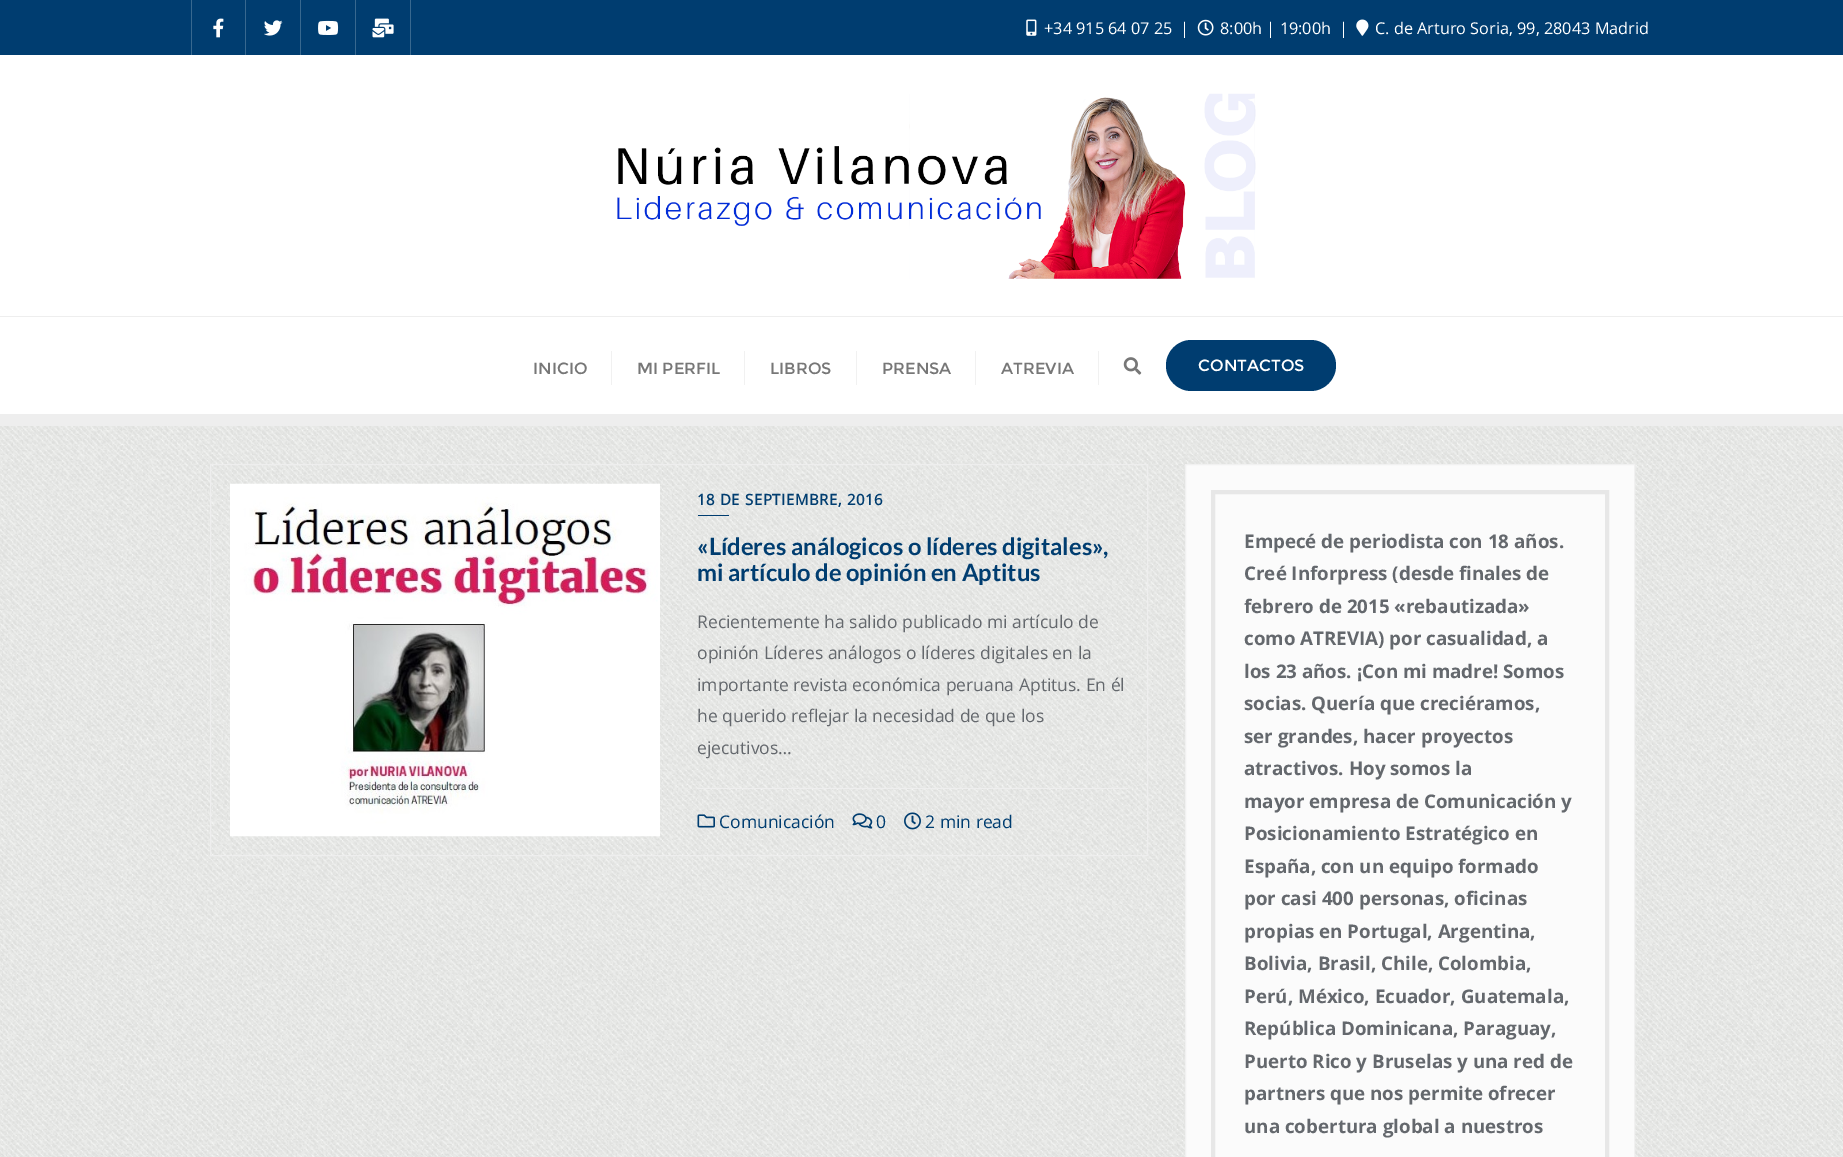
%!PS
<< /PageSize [1843 1157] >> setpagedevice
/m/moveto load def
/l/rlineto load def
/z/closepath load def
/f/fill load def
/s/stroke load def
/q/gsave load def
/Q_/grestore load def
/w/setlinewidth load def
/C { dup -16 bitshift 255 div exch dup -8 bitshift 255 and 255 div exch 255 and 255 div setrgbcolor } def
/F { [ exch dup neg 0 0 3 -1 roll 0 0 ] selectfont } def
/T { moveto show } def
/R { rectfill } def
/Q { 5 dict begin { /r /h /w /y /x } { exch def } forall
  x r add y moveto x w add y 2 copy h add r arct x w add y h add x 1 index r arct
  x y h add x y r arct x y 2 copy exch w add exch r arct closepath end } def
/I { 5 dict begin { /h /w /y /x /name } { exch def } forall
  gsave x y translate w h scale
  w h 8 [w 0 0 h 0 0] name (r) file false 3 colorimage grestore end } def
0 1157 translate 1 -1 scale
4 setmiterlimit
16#FFFFFF C
0 0 1843 1157 R
(1.rgb) 0 426 1843 731 I
16#EEEEEE C
0 414 1843 12 R
16#003D70 C
0 0 1843 55 R
16#38688F C
245 0 1 55 R
191 0 1 55 R
(2.rgb) 213 18 11 20 I
300 0 1 55 R
(3.rgb) 264 20 19 16 I
355 0 1 55 R
(4.rgb) 318 20 21 15 I
410 0 1 55 R
(5.rgb) 372 18 22 20 I
(6.rgb) 1026 19 11 17 I
/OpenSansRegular-Regular 16.25 F
16#FFFFFF C
(+34 915 64 07 25) 1044 34 T
(|) 1180 34 T
(7.rgb) 1197 19 17 17 I
(8:00h | 19:00h) 1220 34 T
(|) 1339 34 T
(8.rgb) 1356 19 13 17 I
(C. de Arturo Soria, 99, 28043 Madrid) 1375 34 T
16#EEEEEE C
0 316 1843 1 R
(9.rgb) 617 93 639 186 I
/Montserrat-Regular 16.25 F
16#777777 C
(INICIO) 533 374 T
16#F1F1F1 C
611 351 1 34 R
16#777777 C
(MI PERFIL) 637 374 T
16#F1F1F1 C
744 351 1 34 R
16#777777 C
(LIBROS) 770 374 T
16#F1F1F1 C
856 351 1 34 R
16#777777 C
(PRENSA) 882 374 T
16#F1F1F1 C
975 351 1 34 R
16#777777 C
(ATREVIA) 1001 374 T
16#F1F1F1 C
1098 351 1 34 R
(10.rgb) 1123 357 19 18 I
16#003D70 C
1166 340 170 51 25.5 Q f
16#FFFFFF C
(CONTACTOS) 1198 371 T
16#EEEEEE C
210.5 464.5 937 391 rectstroke
(11.rgb) 230 483 430 354 I
/OpenSansRegular-Bold 15 F
16#003D70 C
697 505 m .6 0 (18 DE SEPTIEMBRE, 2016) ashow
698 515 31 1 R
/Lato-Bold 23.75 F
(«Líderes análogicos o líderes digitales»,) 697 555 T
(mi artículo de opinión en Aptitus) 697 581 T
/OpenSansRegular-Regular 17.5 F
16#64686D C
(Recientemente ha salido publicado mi artículo de) 697 628 T
(opinión Líderes análogos o líderes digitales en la) 697 659 T
(importante revista económica peruana Aptitus. En él) 697 691 T
(he querido reflejar la necesidad de que los) 697 722 T
(ejecutivos…) 697 754 T
16#EEEEEE C
698 788 430 1 R
(12.rgb) 697 814 18 14 I
16#003D70 C
(Comunicación) 719 828 T
(13.rgb) 852 813 21 16 I
(0) 876 828 T
(14.rgb) 904 812 17 18 I
(2 min read) 925 828 T
16#FBFBFB C
1185.5 464.5 m 449 0 l 0 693 l -449 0 l z q f Q_
16#F1F1F1 C
s
16#E7E7E7 C
4 w
1213 492 394 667 rectstroke
/OpenSans-Bold 18.75 F
16#64686D C
(Empecé de periodista con 18 años.) 1244 548 T
(Creé Inforpress \(desde finales de) 1244 580 T
(febrero de 2015 «rebautizada») 1244 613 T
(como ATREVIA\) por casualidad, a) 1244 645 T
(los 23 años. ¡Con mi madre! Somos) 1244 678 T
(socias. Quería que creciéramos,) 1244 710 T
(ser grandes, hacer proyectos) 1244 743 T
(atractivos. Hoy somos la) 1244 775 T
(mayor empresa de Comunicación y) 1244 808 T
(Posicionamiento Estratégico en) 1244 840 T
(España, con un equipo formado) 1244 873 T
(por casi 400 personas, oficinas) 1244 905 T
(propias en Portugal, Argentina,) 1244 938 T
(Bolivia, Brasil, Chile, Colombia,) 1244 970 T
(Perú, México, Ecuador, Guatemala,) 1244 1003 T
(República Dominicana, Paraguay,) 1244 1035 T
(Puerto Rico y Bruselas y una red de) 1244 1068 T
(partners que nos permite ofrecer) 1244 1100 T
(una cobertura global a nuestros) 1244 1133 T
showpage
